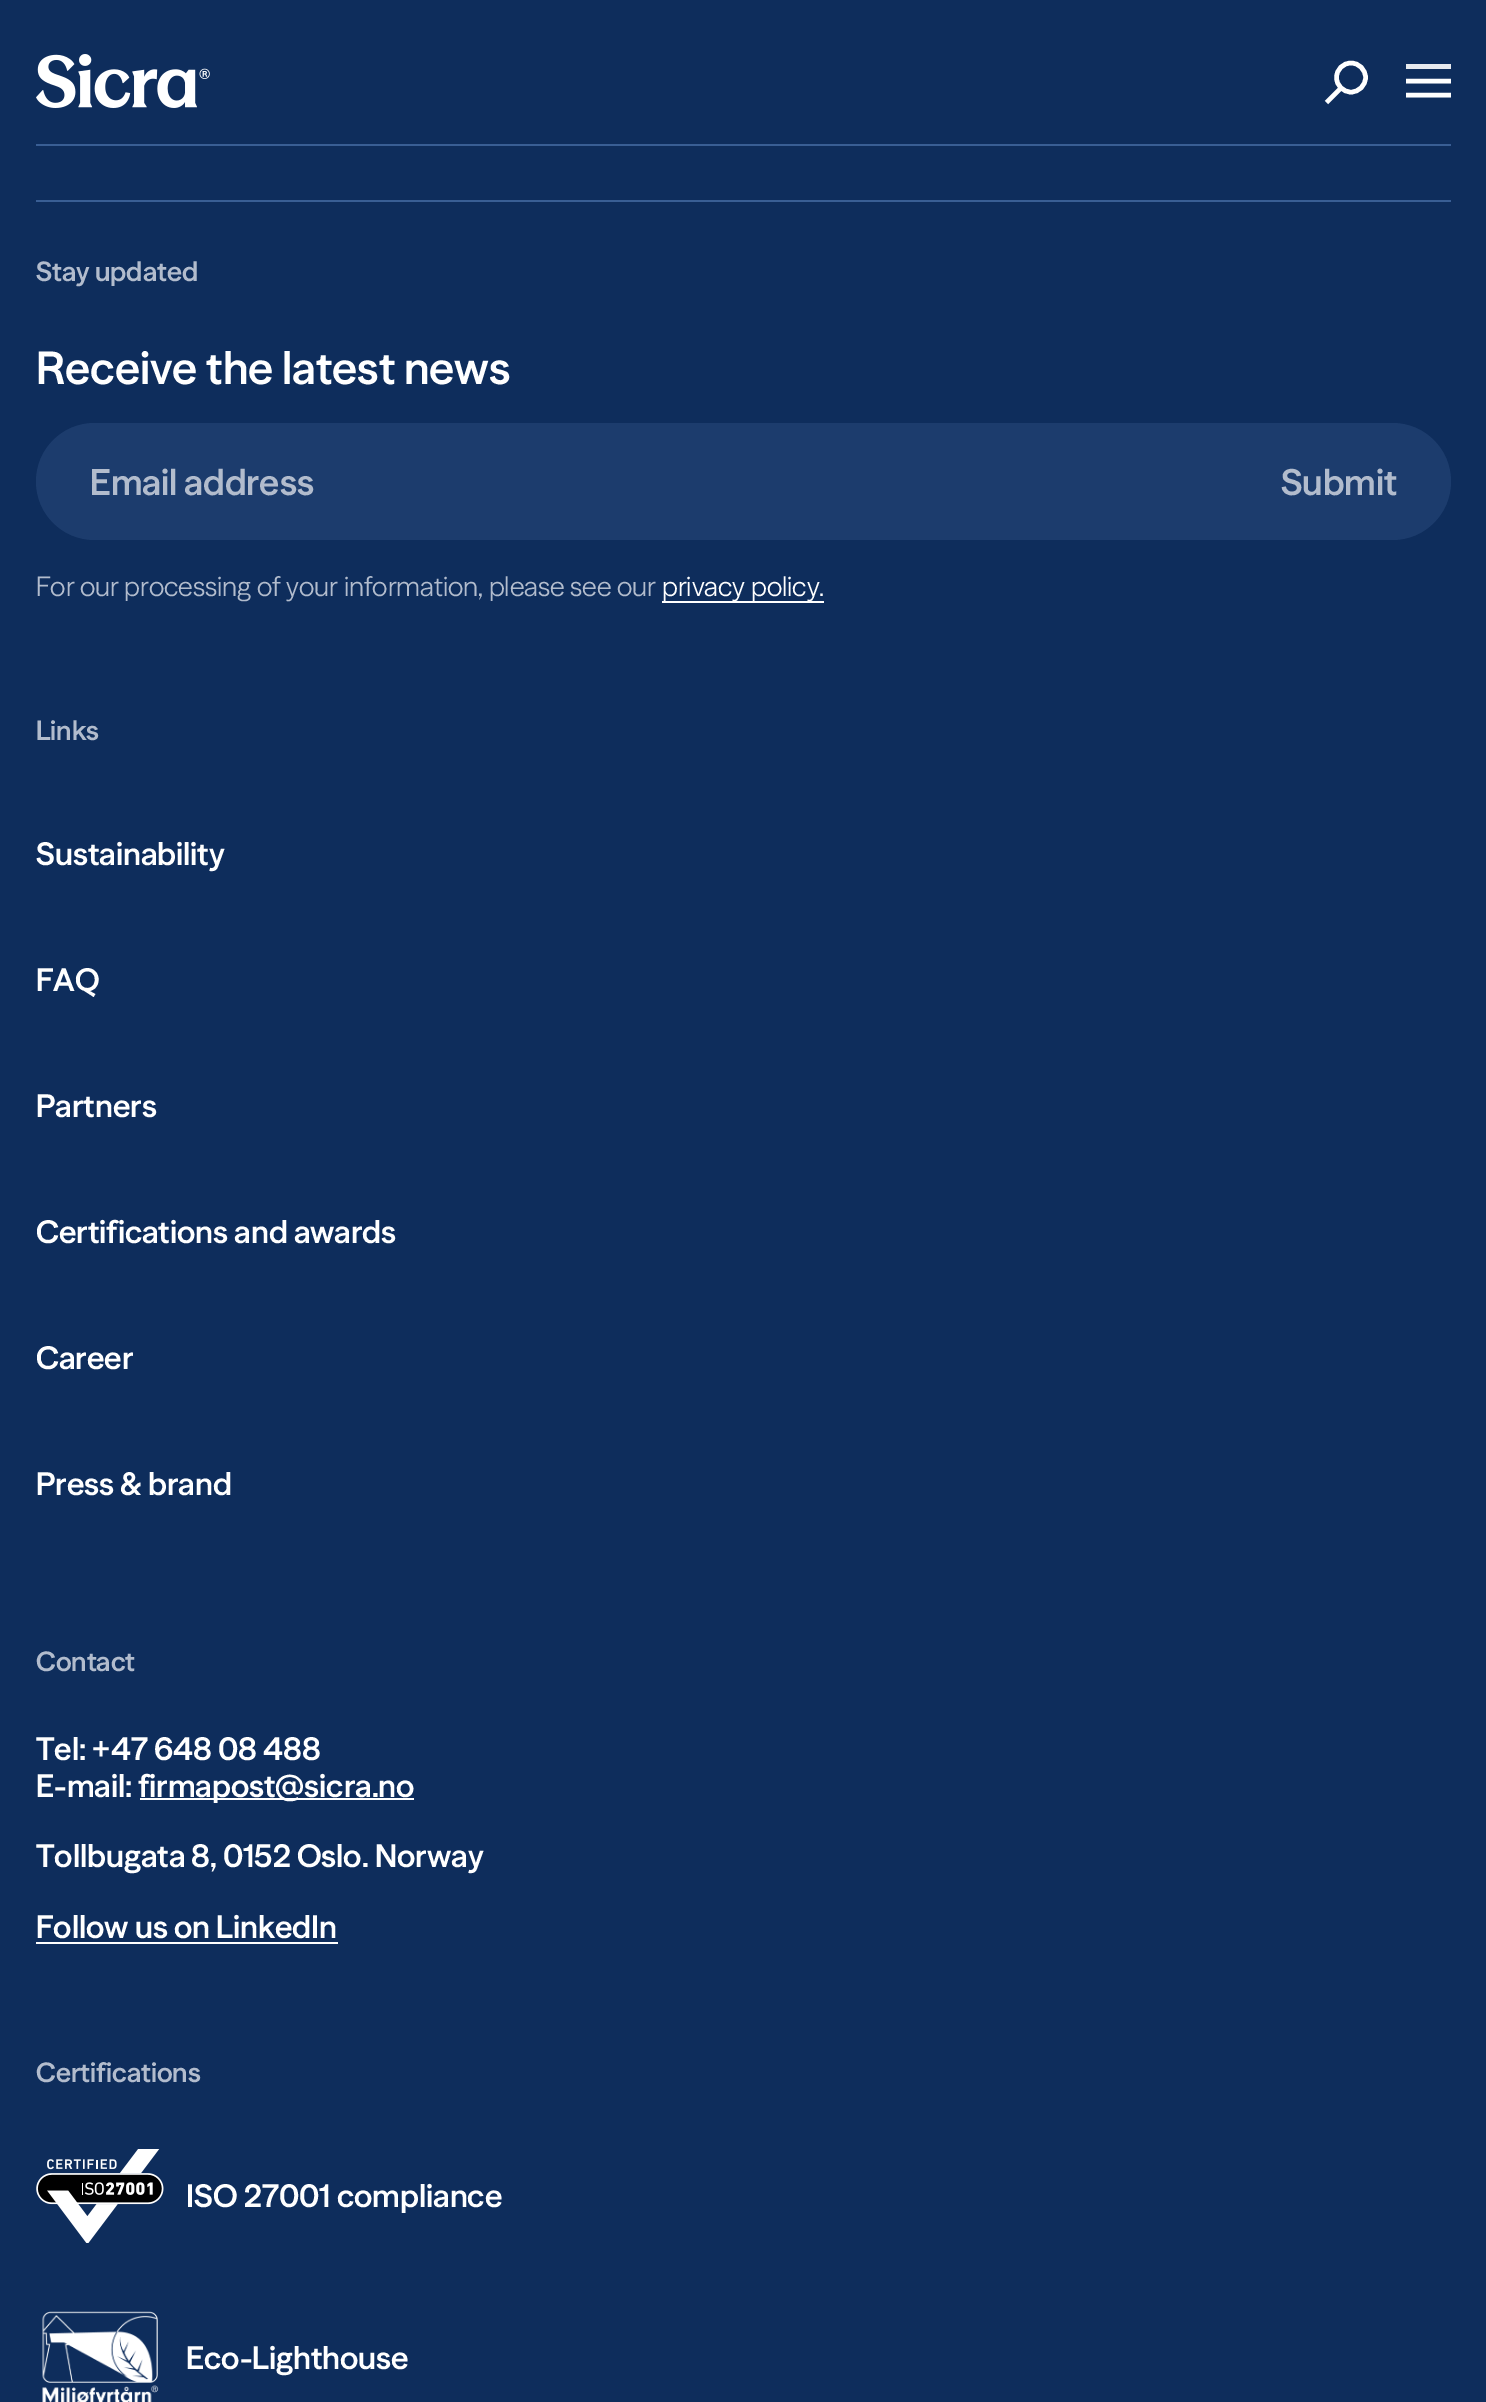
%!PS
<< /PageSize [1486 2402] >> setpagedevice
/m/moveto load def
/l/rlineto load def
/f/fill load def
/s/stroke load def
/w/setlinewidth load def
/C { dup -16 bitshift 255 div exch dup -8 bitshift 255 and 255 div exch 255 and 255 div setrgbcolor } def
/F { [ exch dup neg 0 0 3 -1 roll 0 0 ] selectfont } def
/T { moveto show } def
/R { rectfill } def
/O { newpath 0 360 arc closepath } def
/Q { 5 dict begin { /r /h /w /y /x } { exch def } forall
  x r add y moveto x w add y 2 copy h add r arct x w add y h add x 1 index r arct
  x y h add x y r arct x y 2 copy exch w add exch r arct closepath end } def
/I { 5 dict begin { /h /w /y /x /name } { exch def } forall
  gsave x y translate w h scale
  w h 8 [w 0 0 h 0 0] name (r) file false 3 colorimage grestore end } def
0 2402 translate 1 -1 scale
4 setmiterlimit
16#0E2D5C C
0 0 1486 2402 R
16#395E94 C
36 144 1415 2 R
(1.rgb) 36 54 174 54 I
16#FFFFFF C
4.5 w
1351 77.5 14.5 O s
1340 89 m -13.5 13.5 l s
16#E7EAEF C
1406 64 45 5 R
16#FFFFFF C
1406 81 m 45 0 l 1406 95 m 45 0 l s
16#395E94 C
36 200 1415 2 R
/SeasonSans-SemiBold 27 F
16#B2BCCD C
(Stay updated) 36 281 T
/SeasonSans-SemiBold 45 F
16#FFFFFF C
(Receive the latest news) 36 384 T
16#1C3C6D C
36 423 1415 117 58.5 Q f
/SeasonSans-SemiBold 36 F
16#B2BCCD C
(Email address) 90 495 T
(Submit) 1281 495 T
/SeasonSans-Regular 27 F
(For our processing of your information, please see our) 36 596 T
16#FFFFFF C
662 601 162 2 R
(privacy policy.) 662 596 T
/SeasonSans-SemiBold 27 F
16#B2BCCD C
(Links) 36 740 T
/SeasonSans-SemiBold 31.5 F
16#FFFFFF C
(Sustainability) 36 865 T
(FAQ) 36 991 T
(Partners) 36 1117 T
(Certifications and awards) 36 1243 T
(Career) 36 1369 T
(Press & brand) 36 1495 T
/SeasonSans-SemiBold 27 F
16#B2BCCD C
(Contact) 36 1671 T
/SeasonSans-SemiBold 31.5 F
16#FFFFFF C
(Tel: +47 648 08 488) 36 1760 T
(E-mail:) 36 1797 T
140 1798 274 2 R
(firmapost@sicra.no) 138 1797 T
(Tollbugata 8, 0152 Oslo. Norway) 36 1867 T
(Follow us on LinkedIn) 36 1938 T
36 1942 302 2 R
/SeasonSans-SemiBold 27 F
16#B2BCCD C
(Certifications) 36 2082 T
(2.rgb) 36 2149 128 94 I
/SeasonSans-SemiBold 31.5 F
16#FFFFFF C
(ISO 27001 compliance) 186 2207 T
(3.rgb) 42 2311 117 91 I
(Eco-Lighthouse) 186 2369 T
showpage
